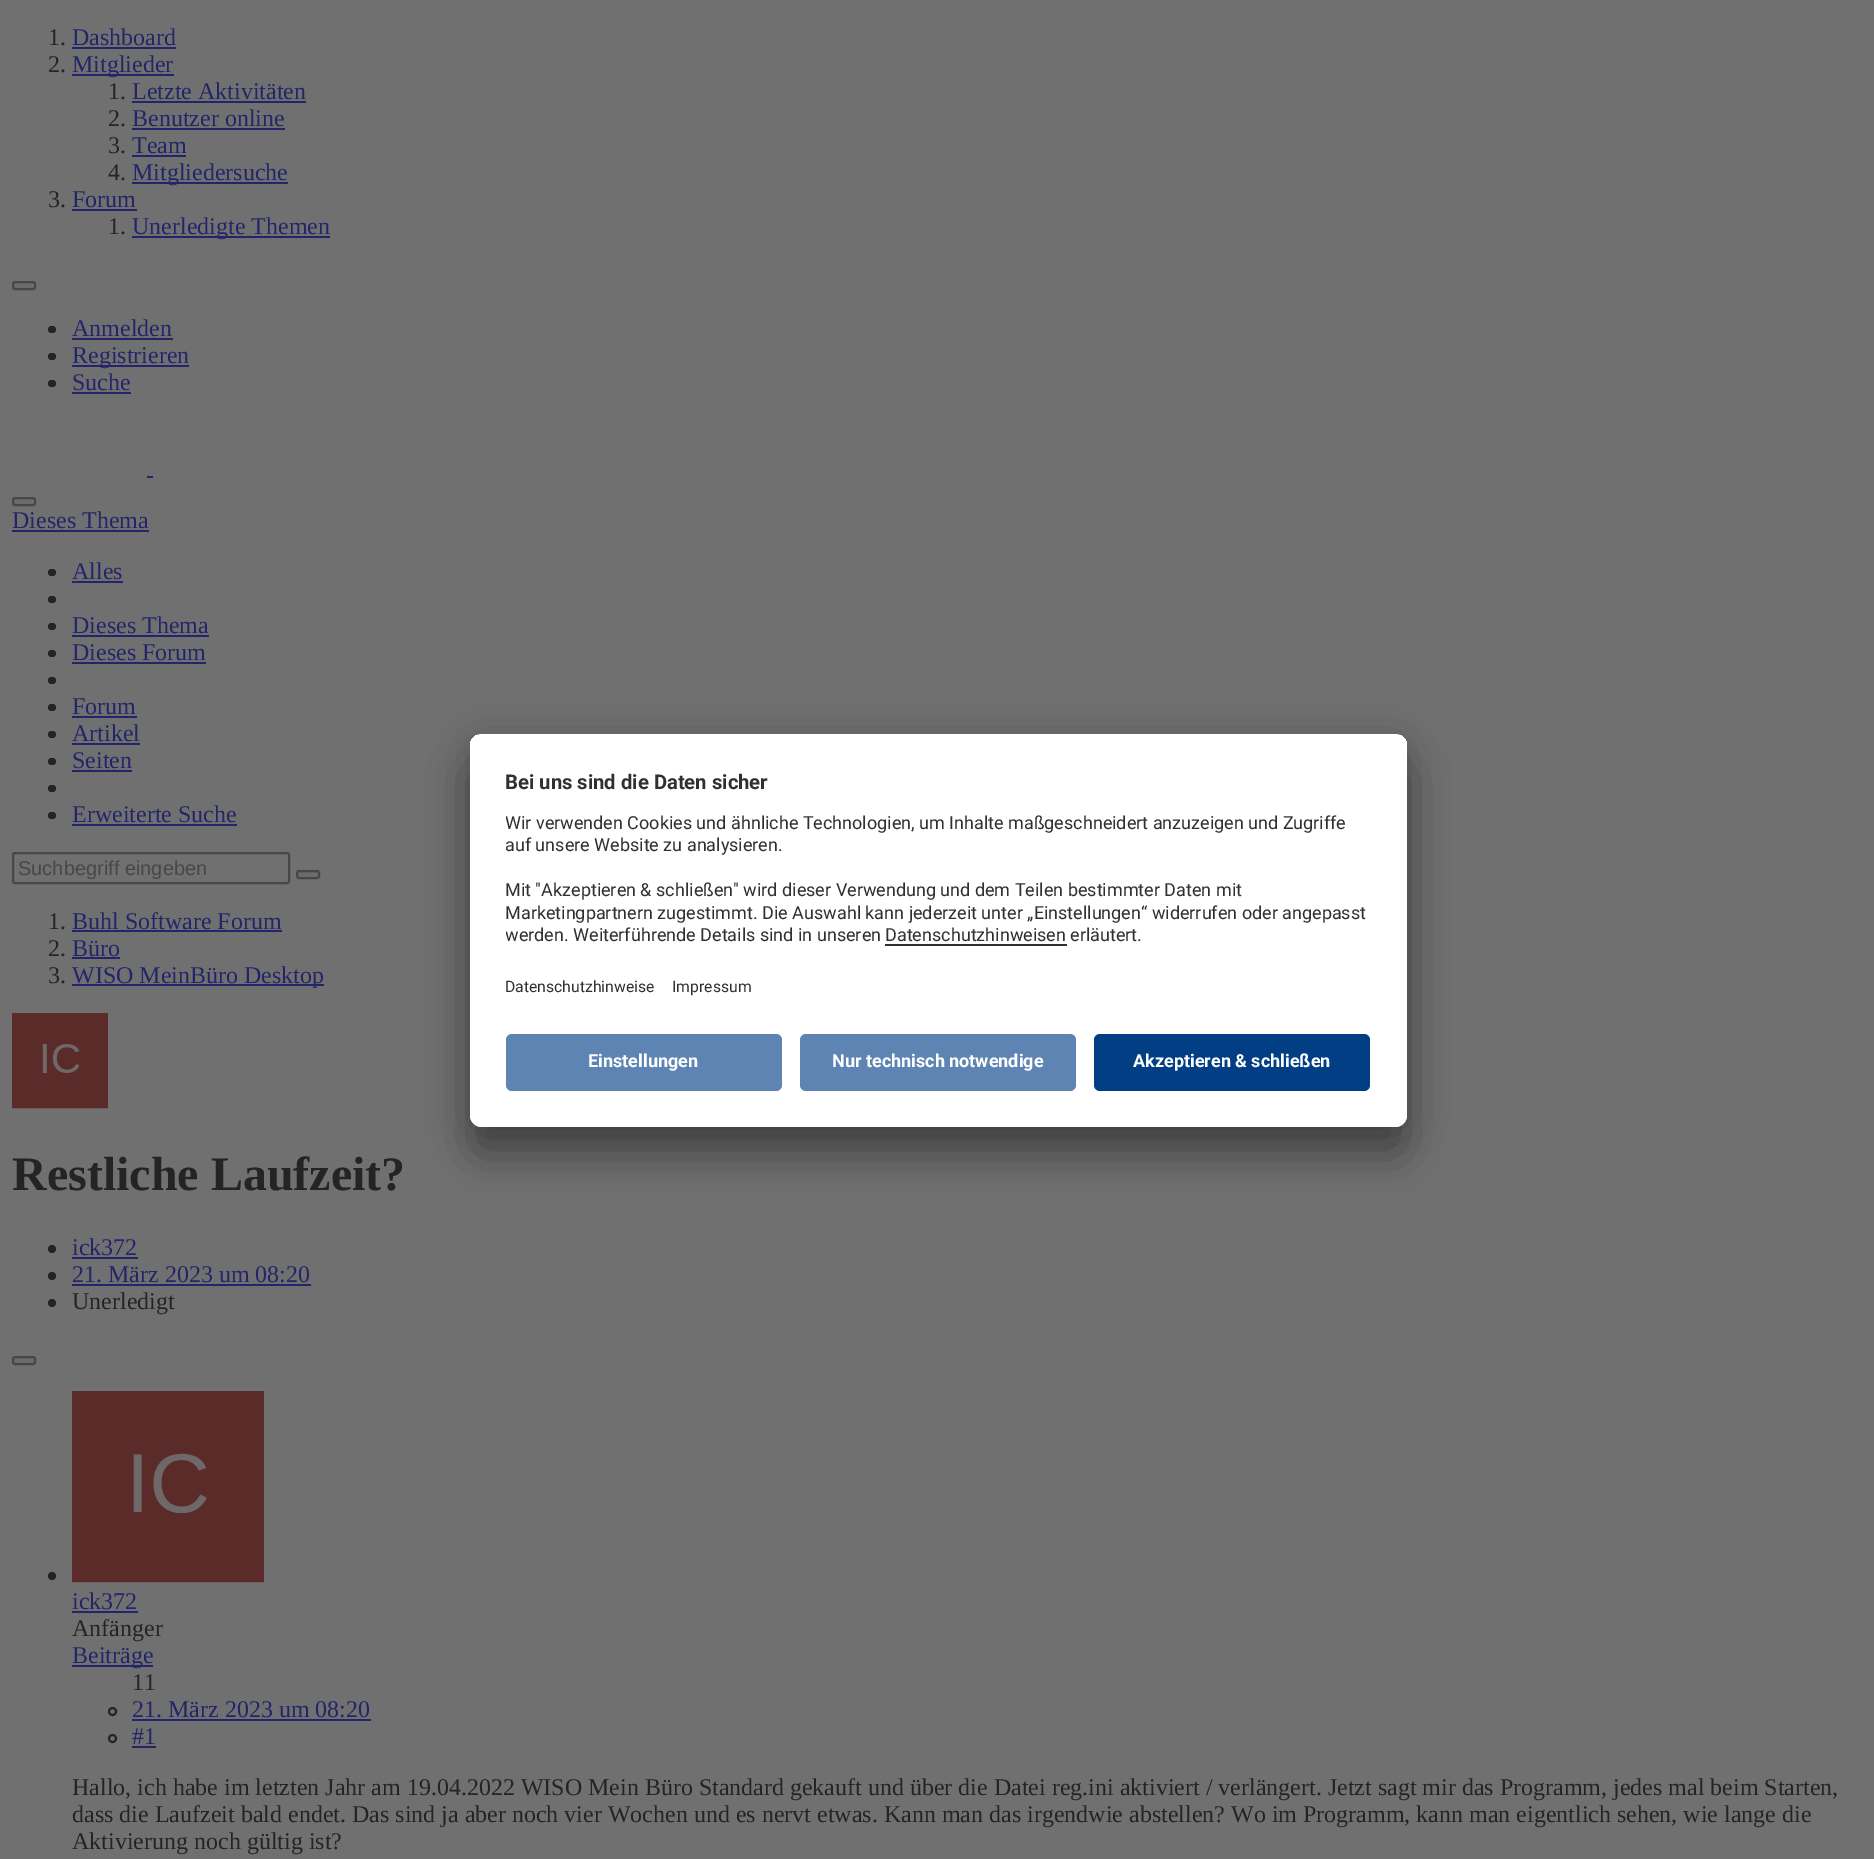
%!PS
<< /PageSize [1874 1859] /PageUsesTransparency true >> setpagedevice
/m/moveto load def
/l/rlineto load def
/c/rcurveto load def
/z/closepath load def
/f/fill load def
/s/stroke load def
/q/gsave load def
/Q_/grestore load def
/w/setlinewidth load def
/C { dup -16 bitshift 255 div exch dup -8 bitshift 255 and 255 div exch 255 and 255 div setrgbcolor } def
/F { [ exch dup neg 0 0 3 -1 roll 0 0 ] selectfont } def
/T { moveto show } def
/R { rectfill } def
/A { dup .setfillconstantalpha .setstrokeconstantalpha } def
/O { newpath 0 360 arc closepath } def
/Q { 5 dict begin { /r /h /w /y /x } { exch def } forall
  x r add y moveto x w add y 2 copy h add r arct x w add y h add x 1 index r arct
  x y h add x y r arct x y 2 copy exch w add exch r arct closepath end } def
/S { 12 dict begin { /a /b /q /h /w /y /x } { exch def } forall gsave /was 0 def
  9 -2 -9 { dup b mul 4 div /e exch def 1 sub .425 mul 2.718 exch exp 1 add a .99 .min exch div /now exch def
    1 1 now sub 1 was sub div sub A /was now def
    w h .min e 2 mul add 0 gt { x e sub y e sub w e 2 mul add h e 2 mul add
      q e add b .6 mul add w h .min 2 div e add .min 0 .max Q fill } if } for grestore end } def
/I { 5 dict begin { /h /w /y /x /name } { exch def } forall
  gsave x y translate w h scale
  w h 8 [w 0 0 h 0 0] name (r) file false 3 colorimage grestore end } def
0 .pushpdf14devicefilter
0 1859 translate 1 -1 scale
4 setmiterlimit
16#707070 C
0 0 1874 1859 R
/LiberationSerif-Regular 24 F
16#242424 C
(1.) 48 45 T
16#24246B C
(Dashboard) 72 45 T
72 47 104 2 R
16#242424 C
(2.) 48 72 T
16#24246B C
72 74 102 2 R
(Mitglieder) 72 72 T
16#242424 C
(1.) 108 99 T
16#24246B C
(Letzte Aktivitäten) 132 99 T
132 101 174 2 R
16#242424 C
(2.) 108 126 T
16#24246B C
(Benutzer online) 132 126 T
132 128 153 2 R
16#242424 C
(3.) 108 153 T
16#24246B C
(Team) 132 153 T
132 155 54 2 R
16#242424 C
(4.) 108 180 T
16#24246B C
132 182 156 2 R
(Mitgliedersuche) 132 180 T
16#242424 C
(3.) 48 207 T
16#24246B C
(Forum) 72 207 T
72 209 65 2 R
16#242424 C
(1.) 108 234 T
16#24246B C
132 236 198 2 R
(Unerledigte Themen) 132 234 T
16#6B6B6B C
13 282 22 7 2 Q q f Q_
16#474747 C
2 w
s
16#242424 C
48 326 8 7 3.5 Q f
16#24246B C
(Anmelden) 72 336 T
72 338 101 2 R
16#242424 C
48 353 8 7 3.5 Q f
16#24246B C
72 365 117 2 R
(Registrieren) 72 363 T
16#242424 C
48 380 8 7 3.5 Q f
16#24246B C
(Suche) 72 390 T
72 392 59 2 R
147 476 6 2 R
16#6B6B6B C
13 498 22 7 2 Q q f Q_
16#474747 C
s
16#24246B C
(Dieses Thema) 12 528 T
12 530 137 2 R
16#242424 C
48 569 8 7 3.5 Q f
16#24246B C
(Alles) 72 579 T
72 581 51 2 R
16#242424 C
48 596 8 7 3.5 Q f
48 623 8 7 3.5 Q f
16#24246B C
(Dieses Thema) 72 633 T
72 635 137 2 R
16#242424 C
48 650 8 7 3.5 Q f
16#24246B C
(Dieses Forum) 72 660 T
72 662 134 2 R
16#242424 C
48 677 8 7 3.5 Q f
48 704 8 7 3.5 Q f
16#24246B C
(Forum) 72 714 T
72 716 65 2 R
16#242424 C
48 731 8 7 3.5 Q f
16#24246B C
(Artikel) 72 741 T
72 743 68 2 R
16#242424 C
48 758 8 7 3.5 Q f
16#24246B C
(Seiten) 72 768 T
72 770 60 2 R
16#242424 C
48 785 8 7 3.5 Q f
48 812 8 7 3.5 Q f
16#24246B C
(Erweiterte Suche) 72 822 T
72 824 165 2 R
16#474747 C
13 853 276 30 2 Q s
q
18 857 246 22 rectclip
/LiberationSans-Regular 20 F
(Suchbegriff eingeben) 18 875 T
Q_
16#6B6B6B C
297 871 22 7 2 Q q f Q_
16#474747 C
s
16#242424 C
(1.) 48 929 T
16#24246B C
(Buhl Software Forum) 72 929 T
72 930 210 2 R
16#242424 C
(2.) 48 956 T
16#24246B C
(Büro) 72 956 T
72 957 48 2 R
16#242424 C
(3.) 48 983 T
16#24246B C
72 984 252 2 R
(WISO MeinBüro Desktop) 72 983 T
(1.rgb) 12 1013 96 96 I
/LiberationSerif-Bold 48 F
16#242424 C
(Restliche Laufzeit?) 12 1190 T
52 1249 4 O f
/LiberationSerif-Regular 24 F
16#24246B C
(ick372) 72 1255 T
72 1257 66 2 R
16#242424 C
52 1276 4 O f
16#24246B C
(21. März 2023 um 08:20) 72 1282 T
72 1284 239 2 R
16#242424 C
52 1303 4 O f
(Unerledigt) 72 1309 T
16#6B6B6B C
13 1357 22 7 2 Q q f Q_
16#474747 C
s
16#242424 C
52 1576 4 O f
(2.rgb) 72 1391 192 192 I
16#24246B C
(ick372) 72 1609 T
72 1611 66 2 R
16#242424 C
(Anfänger) 72 1636 T
16#24246B C
72 1665 81 2 R
(Beiträge) 72 1663 T
16#242424 C
(11) 132 1690 T
112.5 1711.5 3.5 O s
16#24246B C
(21. März 2023 um 08:20) 132 1717 T
132 1719 239 2 R
16#242424 C
112.5 1738.5 3.5 O s
16#24246B C
(#1) 132 1744 T
132 1746 24 2 R
16#242424 C
(Hallo, ich habe im letzten Jahr am 19.04.2022 WISO Mein Büro Standard gekauft und über die Datei reg.ini aktiviert / verlängert. Jetzt sagt mir das Programm, jedes mal beim Starten,) 72 1795 T
(dass die Laufzeit bald endet. Das sind ja aber noch vier Wochen und es nervt etwas. Kann man das irgendwie abstellen? Wo im Programm, kann man eigentlich sehen, wie lange die) 72 1822 T
(Aktivierung noch gültig ist?) 72 1849 T
16#000000 C
470 764 937 393 12 21 .3 S
470 741 937 393 12 19.5 .22 S
16#FFFFFF C
470 734 937 393 12 Q f
q
470 734 937 393 12 Q clip newpath
482 734 m 913 0 l 6.5 0 12 5.5 12 12 c 0 276 l -937 0 l 0 -276 l 0 -6.5 5.5 -12 12 -12 c z clip newpath
470 735 937 287 R
Q_
/Roboto-Bold 20.25 F
16#303030 C
(Bei uns sind die Daten sicher) 505 789 T
q
506 807 865 147 rectclip
/Roboto-Regular 18 F
(Wir verwenden Cookies und ähnliche Technologien, um Inhalte maßgeschneidert anzuzeigen und Zugriffe) 505 829 T
(auf unsere Website zu analysieren.) 505 851 T
Q_
/Roboto-Regular 18 F
(Mit "Akzeptieren & schließen" wird dieser Verwendung und dem Teilen bestimmter Daten mit) 505 896 T
(Marketingpartnern zugestimmt. Die Auswahl kann jederzeit unter „Einstellungen“ widerrufen oder angepasst) 505 919 T
q
506 807 865 147 rectclip
(werden. Weiterführende Details sind in unseren) 505 941 T
Q_
(Datenschutzhinweisen erläutert.) 885 941 T
885 944 182 2 R
/Roboto-Regular 15.75 F
(Datenschutzhinweise) 505 992 T
(Impressum) 672 992 T
16#FFFFFF C
470 1022 m 937 0 l 0 93 l 0 6.5 -5.5 12 -12 12 c -913 0 l -6.5 0 -12 -5.5 -12 -12 c z f
16#5D84B3 C
506 1034 276 57 6 Q f
/Roboto-Bold 18 F
16#FFFFFF C
(Einstellungen) 588 1067 T
16#5D84B3 C
800 1034 276 57 6 Q f
16#FFFFFF C
(Nur technisch notwendige) 832 1067 T
16#023E84 C
1094 1034 276 57 6 Q f
16#FFFFFF C
(Akzeptieren & schließen) 1133 1067 T
.poppdf14devicefilter showpage
